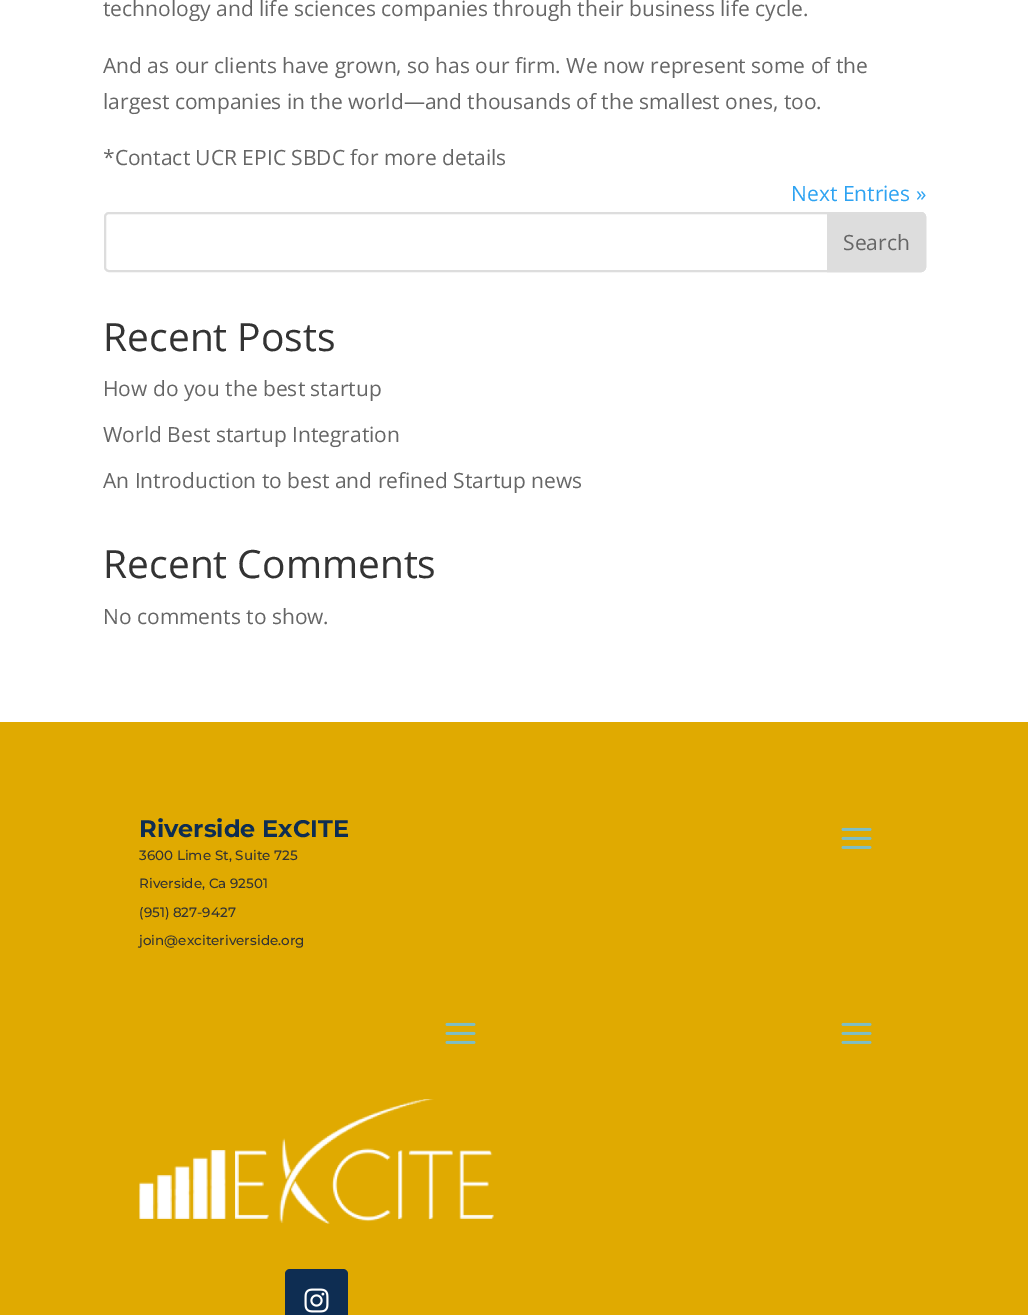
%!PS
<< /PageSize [1028 1315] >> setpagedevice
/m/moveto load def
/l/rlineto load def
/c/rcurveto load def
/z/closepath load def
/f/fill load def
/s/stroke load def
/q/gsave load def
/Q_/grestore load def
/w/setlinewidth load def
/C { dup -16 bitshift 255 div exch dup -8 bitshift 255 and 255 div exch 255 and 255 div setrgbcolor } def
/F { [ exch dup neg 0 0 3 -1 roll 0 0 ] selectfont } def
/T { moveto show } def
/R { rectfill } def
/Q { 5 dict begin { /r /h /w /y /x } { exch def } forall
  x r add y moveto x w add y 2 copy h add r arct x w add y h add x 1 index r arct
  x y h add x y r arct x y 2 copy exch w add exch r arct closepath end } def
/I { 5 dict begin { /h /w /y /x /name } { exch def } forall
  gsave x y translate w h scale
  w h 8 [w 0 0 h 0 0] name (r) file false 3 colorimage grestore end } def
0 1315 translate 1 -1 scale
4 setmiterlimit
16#FFFFFF C
0 0 1028 1315 R
/OpenSans-Regular 21 F
16#666666 C
(technology and life sciences companies through their business life cycle.) 103 16 T
(And as our clients have grown, so has our firm. We now represent some of the) 103 73 T
(largest companies in the world—and thousands of the smallest ones, too.) 103 109 T
(*Contact UCR EPIC SBDC for more details) 103 165 T
16#2EA3F2 C
(Next Entries ») 791 201 T
16#DDDDDD C
2 w
105 213 820 58 4 Q s
828 213 m 93 0 l 2 0 4 2 4 4 c 0 50 l 0 2 -2 4 -4 4 c -93 0 l z q f Q_
s
16#666666 C
(Search) 843 250 T
/OpenSans-Regular 39 F
16#333333 C
(Recent Posts) 103 351 T
/OpenSans-Regular 21 F
16#666666 C
(How do you the best startup) 103 396 T
(World Best startup Integration) 103 442 T
(An Introduction to best and refined Startup news) 103 488 T
/OpenSans-Regular 39 F
16#333333 C
(Recent Comments) 103 578 T
/OpenSans-Regular 21 F
16#666666 C
(No comments to show.) 103 624 T
16#E0AA01 C
0 722 1028 593 R
/Montserrat-Thin 24 F
16#0E2D52 C
(Riverside ExCITE) 139 837 T
/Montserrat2-Thin 13.5 F
16#333333 C
(3600 Lime St, Suite 725) 139 860 T
(Riverside, Ca 92501) 139 888 T
(\(951\) 827-9427) 139 917 T
(join@exciteriverside.org) 139 945 T
(1.rgb) 841 827 31 22 I
(1.rgb) 445 1022 31 22 I
(1.rgb) 841 1022 31 22 I
(2.rgb) 139 1099 355 125 I
16#0E2D52 C
285 1269 63 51 5 Q f
(3.rgb) 304 1288 25 25 I
showpage
